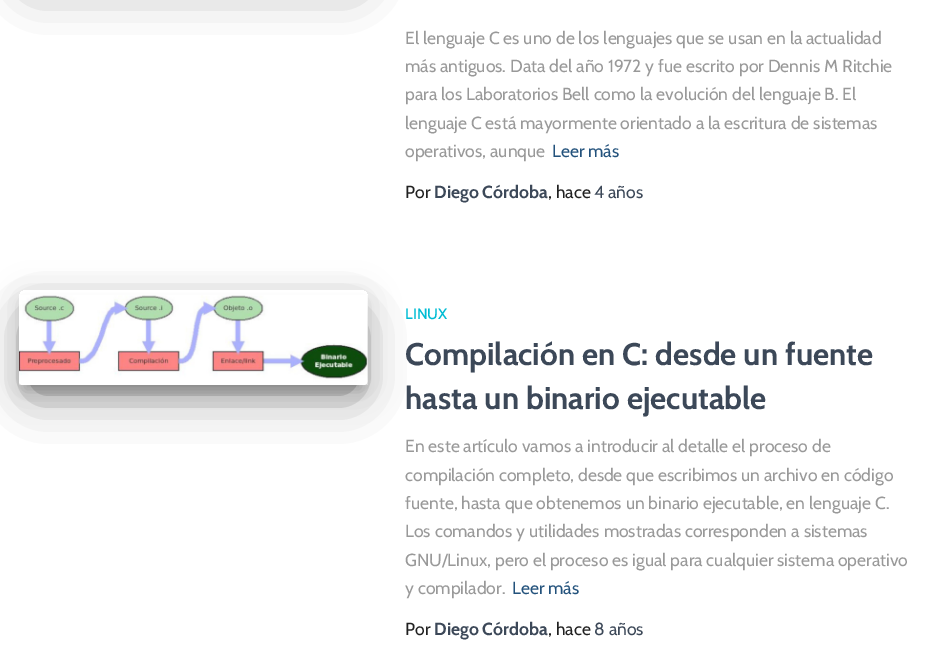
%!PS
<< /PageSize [927 665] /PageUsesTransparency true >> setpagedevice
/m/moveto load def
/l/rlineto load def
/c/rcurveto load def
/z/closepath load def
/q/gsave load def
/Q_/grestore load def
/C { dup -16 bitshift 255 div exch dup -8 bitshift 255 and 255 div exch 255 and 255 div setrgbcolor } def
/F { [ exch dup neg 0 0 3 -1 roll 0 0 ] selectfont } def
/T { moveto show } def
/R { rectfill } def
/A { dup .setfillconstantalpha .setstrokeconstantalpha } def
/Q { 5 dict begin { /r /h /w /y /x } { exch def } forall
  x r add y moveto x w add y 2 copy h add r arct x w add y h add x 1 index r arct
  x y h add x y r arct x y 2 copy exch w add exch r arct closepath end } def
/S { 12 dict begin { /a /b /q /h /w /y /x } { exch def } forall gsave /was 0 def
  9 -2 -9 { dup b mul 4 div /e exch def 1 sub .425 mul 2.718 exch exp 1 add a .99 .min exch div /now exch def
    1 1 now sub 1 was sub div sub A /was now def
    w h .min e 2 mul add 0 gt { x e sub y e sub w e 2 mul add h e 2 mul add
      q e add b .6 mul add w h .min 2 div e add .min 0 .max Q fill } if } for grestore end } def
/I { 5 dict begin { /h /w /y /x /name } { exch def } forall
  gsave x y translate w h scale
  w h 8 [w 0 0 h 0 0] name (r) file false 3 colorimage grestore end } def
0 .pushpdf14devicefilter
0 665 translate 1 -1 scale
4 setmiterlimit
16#FFFFFF C
0 0 927 665 R
16#000000 C
34 -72 319 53 0 24 .56 S
/Cabin-Regular 17.5 F
16#999999 C
(El lenguaje C es uno de los lenguajes que se usan en la actualidad) 405 44 T
(más antiguos. Data del año 1972 y fue escrito por Dennis M Ritchie) 405 72 T
(para los Laboratorios Bell como la evolución del lenguaje B. El) 405 100 T
(lenguaje C está mayormente orientado a la escritura de sistemas) 405 129 T
(operativos, aunque) 405 157 T
16#23527C C
(Leer más) 552 157 T
16#212121 C
(Por) 405 198 T
/Cabin-Bold 17.5 F
16#3C4858 C
(Diego Córdoba) 434 198 T
/Cabin-Regular 17.5 F
16#212121 C
(, hace) 548 198 T
16#3C4858 C
(4 años) 594 198 T
16#000000 C
25 306 336 83 0 6 .2 S
q
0 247 m 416 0 l 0 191 l -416 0 l z 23 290 m 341 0 l 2 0 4 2 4 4 c 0 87 l 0 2 -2 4 -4 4 c -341 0 l -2 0 -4 -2 -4 -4 c 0 -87 l 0 -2 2 -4 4 -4 c z eoclip newpath
19 295 349 95 4 15.5 .12 S
Q_
q
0 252 m 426 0 l 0 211 l -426 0 l z 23 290 m 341 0 l 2 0 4 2 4 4 c 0 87 l 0 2 -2 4 -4 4 c -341 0 l -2 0 -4 -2 -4 -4 c 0 -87 l 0 -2 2 -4 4 -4 c z eoclip newpath
34 325 319 65 0 24 .56 S
Q_
(1.rgb) 19 295 349 90 I
/Cabin-Medium 15 F
16#00BCD4 C
(LINUX) 405 319 T
/Cabin-Bold 31.25 F
16#3C4858 C
(Compilación en C: desde un fuente) 405 365 T
(hasta un binario ejecutable) 405 409 T
/Cabin-Regular 17.5 F
16#999999 C
(En este artículo vamos a introducir al detalle el proceso de) 405 452 T
(compilación completo, desde que escribimos un archivo en código) 405 481 T
(fuente, hasta que obtenemos un binario ejecutable, en lenguaje C.) 405 509 T
(Los comandos y utilidades mostradas corresponden a sistemas) 405 537 T
(GNU/Linux, pero el proceso es igual para cualquier sistema operativo) 405 566 T
(y compilador.) 405 594 T
16#23527C C
(Leer más) 512 594 T
16#212121 C
(Por) 405 635 T
/Cabin-Bold 17.5 F
16#3C4858 C
(Diego Córdoba) 434 635 T
/Cabin-Regular 17.5 F
16#212121 C
(, hace) 548 635 T
16#3C4858 C
(8 años) 594 635 T
.poppdf14devicefilter showpage
